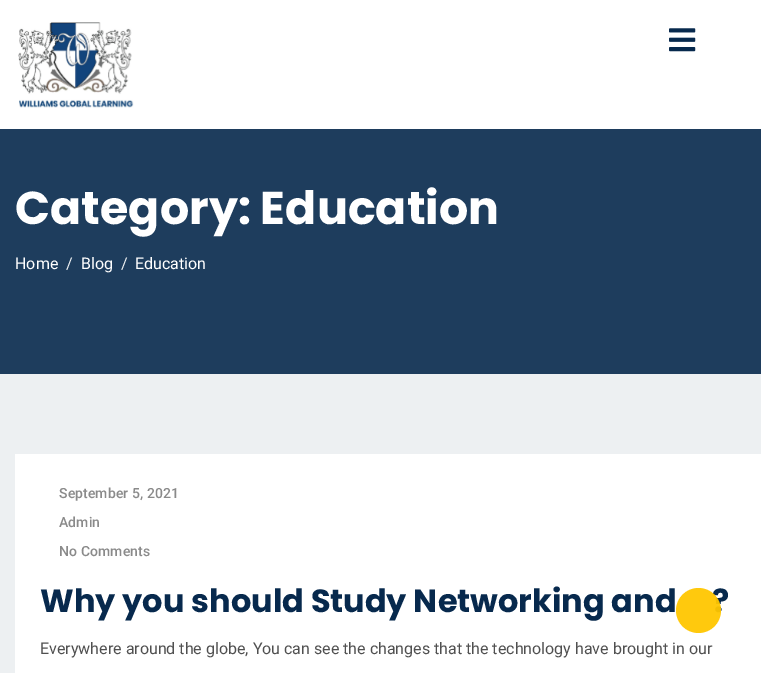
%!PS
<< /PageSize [761 673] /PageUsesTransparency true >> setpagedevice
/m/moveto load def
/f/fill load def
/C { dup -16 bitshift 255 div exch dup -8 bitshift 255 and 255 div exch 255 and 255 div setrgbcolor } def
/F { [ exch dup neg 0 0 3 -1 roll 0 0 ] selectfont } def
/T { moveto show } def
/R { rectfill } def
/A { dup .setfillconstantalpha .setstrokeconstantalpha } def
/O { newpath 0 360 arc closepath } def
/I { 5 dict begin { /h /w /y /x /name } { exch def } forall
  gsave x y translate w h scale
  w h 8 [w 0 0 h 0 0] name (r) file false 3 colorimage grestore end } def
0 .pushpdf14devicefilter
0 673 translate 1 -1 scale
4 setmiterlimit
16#EDF0F2 C
0 0 761 673 R
16#FFFFFF C
0 0 761 129 R
(1.rgb) 18 22 116 86 I
(2.rgb) 669 28 27 24 I
16#1E3D5D C
0 129 761 245 R
/Poppins-Bold 46 F
16#FFFFFF C
(Category: Education) 15 224 T
/Roboto-Regular 16 F
(Home) 15 269 T
16#EDF0F2 C
(/) 66 269 T
16#FFFFFF C
(Blog) 81 269 T
16#EDF0F2 C
(/) 121 269 T
16#FFFFFF C
(Education) 135 269 T
15 454 746 219 R
/Roboto-Medium 14 F
16#8A8A8A C
59 498 m .1 0 (September 5, 2021) ashow
59 527 m .1 0 (Admin) ashow
59 556 m .1 0 (No Comments) ashow
/Poppins-Bold 32 F
16#07294D C
(Why you should Study Networking and) 40 612 T
(?) 712 612 T
/Roboto-Regular 16 F
16#505050 C
(Everywhere around the globe, You can see the changes that the technology have brought in our) 40 654 T
0.95 A
16#FFC600 C
698.5 610.5 22.5 O f
.poppdf14devicefilter showpage
